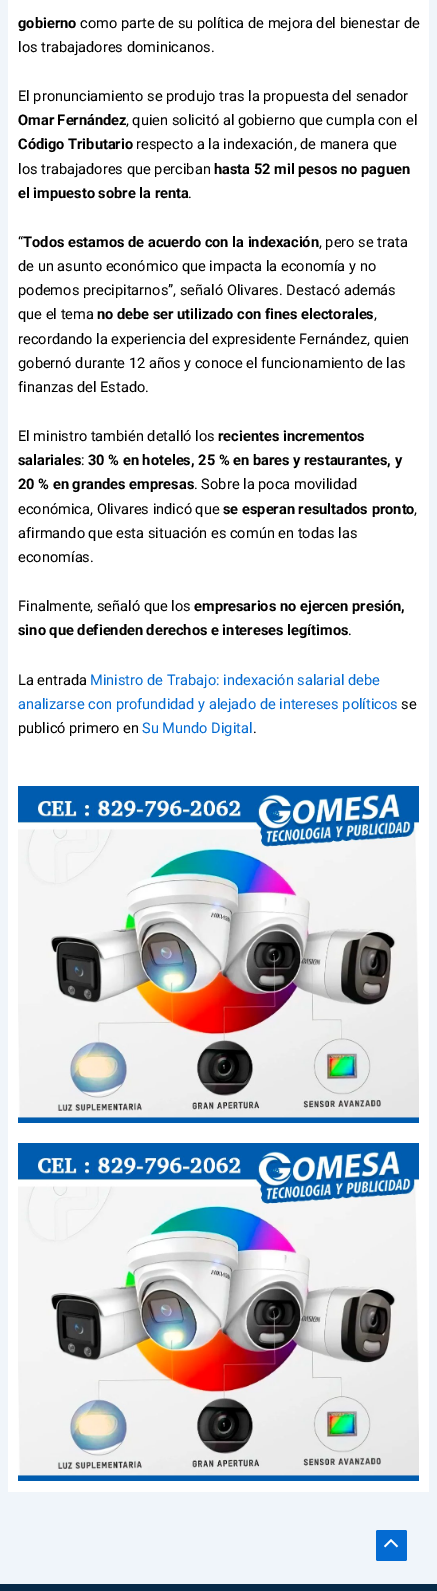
%!PS
<< /PageSize [437 1591] >> setpagedevice
/f/fill load def
/C { dup -16 bitshift 255 div exch dup -8 bitshift 255 and 255 div exch 255 and 255 div setrgbcolor } def
/F { [ exch dup neg 0 0 3 -1 roll 0 0 ] selectfont } def
/T { moveto show } def
/R { rectfill } def
/Q { 5 dict begin { /r /h /w /y /x } { exch def } forall
  x r add y moveto x w add y 2 copy h add r arct x w add y h add x 1 index r arct
  x y h add x y r arct x y 2 copy exch w add exch r arct closepath end } def
/I { 5 dict begin { /h /w /y /x /name } { exch def } forall
  gsave x y translate w h scale
  w h 8 [w 0 0 h 0 0] name (r) file false 3 colorimage grestore end } def
0 1591 translate 1 -1 scale
4 setmiterlimit
16#F0F5FA C
0 0 437 1591 R
16#FFFFFF C
8 0 421 1492 R
/Roboto-Bold 14.6 F
16#000000 C
(gobierno) 18 28 T
/Roboto-Regular 14.6 F
(como parte de su política de mejora del bienestar de) 80 28 T
(los trabajadores dominicanos.) 18 52 T
(El pronunciamiento se produjo tras la propuesta del senador) 18 101 T
/Roboto-Bold 14.6 F
(Omar Fernández) 18 125 T
/Roboto-Regular 14.6 F
(, quien solicitó al gobierno que cumpla con el) 126 125 T
/Roboto-Bold 14.6 F
(Código Tributario) 18 149 T
/Roboto-Regular 14.6 F
(respecto a la indexación, de manera que) 136 149 T
(los trabajadores que perciban) 18 174 T
/Roboto-Bold 14.6 F
(hasta 52 mil pesos no paguen) 214 174 T
(el impuesto sobre la renta) 18 198 T
/Roboto-Regular 14.6 F
(.) 188 198 T
(“) 18 247 T
/Roboto-Bold 14.6 F
(Todos estamos de acuerdo con la indexación) 23 247 T
/Roboto-Regular 14.6 F
(, pero se trata) 319 247 T
(de un asunto económico que impacta la economía y no) 18 271 T
(podemos precipitarnos”, señaló Olivares. Destacó además) 18 295 T
(que el tema) 18 319 T
/Roboto-Bold 14.6 F
(no debe ser utilizado con fines electorales) 97 319 T
/Roboto-Regular 14.6 F
(,) 374 319 T
(recordando la experiencia del expresidente Fernández, quien) 18 344 T
(gobernó durante 12 años y conoce el funcionamiento de las) 18 368 T
(finanzas del Estado.) 18 392 T
(El ministro también detalló los) 18 441 T
/Roboto-Bold 14.6 F
(recientes incrementos) 218 441 T
(salariales) 18 465 T
/Roboto-Regular 14.6 F
(:) 81 465 T
/Roboto-Bold 14.6 F
(30 % en hoteles, 25 % en bares y restaurantes, y) 88 465 T
(20 % en grandes empresas) 18 489 T
/Roboto-Regular 14.6 F
(. Sobre la poca movilidad) 194 489 T
(económica, Olivares indicó que) 18 514 T
/Roboto-Bold 14.6 F
(se esperan resultados pronto) 223 514 T
/Roboto-Regular 14.6 F
(,) 414 514 T
(afirmando que esta situación es común en todas las) 18 538 T
(economías.) 18 562 T
(Finalmente, señaló que los) 18 611 T
/Roboto-Bold 14.6 F
(empresarios no ejercen presión,) 194 611 T
(sino que defienden derechos e intereses legítimos) 18 635 T
/Roboto-Regular 14.6 F
(.) 348 635 T
(La entrada) 18 685 T
16#046BD2 C
(Ministro de Trabajo: indexación salarial debe) 90 685 T
(analizarse con profundidad y alejado de intereses políticos) 18 709 T
16#000000 C
(se) 401 709 T
(publicó primero en) 18 733 T
16#046BD2 C
(Su Mundo Digital) 142 733 T
16#000000 C
(.) 253 733 T
(1.rgb) 18 786 401 337 I
(2.rgb) 18 1143 401 338 I
16#072A48 C
0 1584 437 7 R
16#046BD2 C
376 1530 31 31 2 Q f
(3.rgb) 384 1539 15 9 I
showpage
